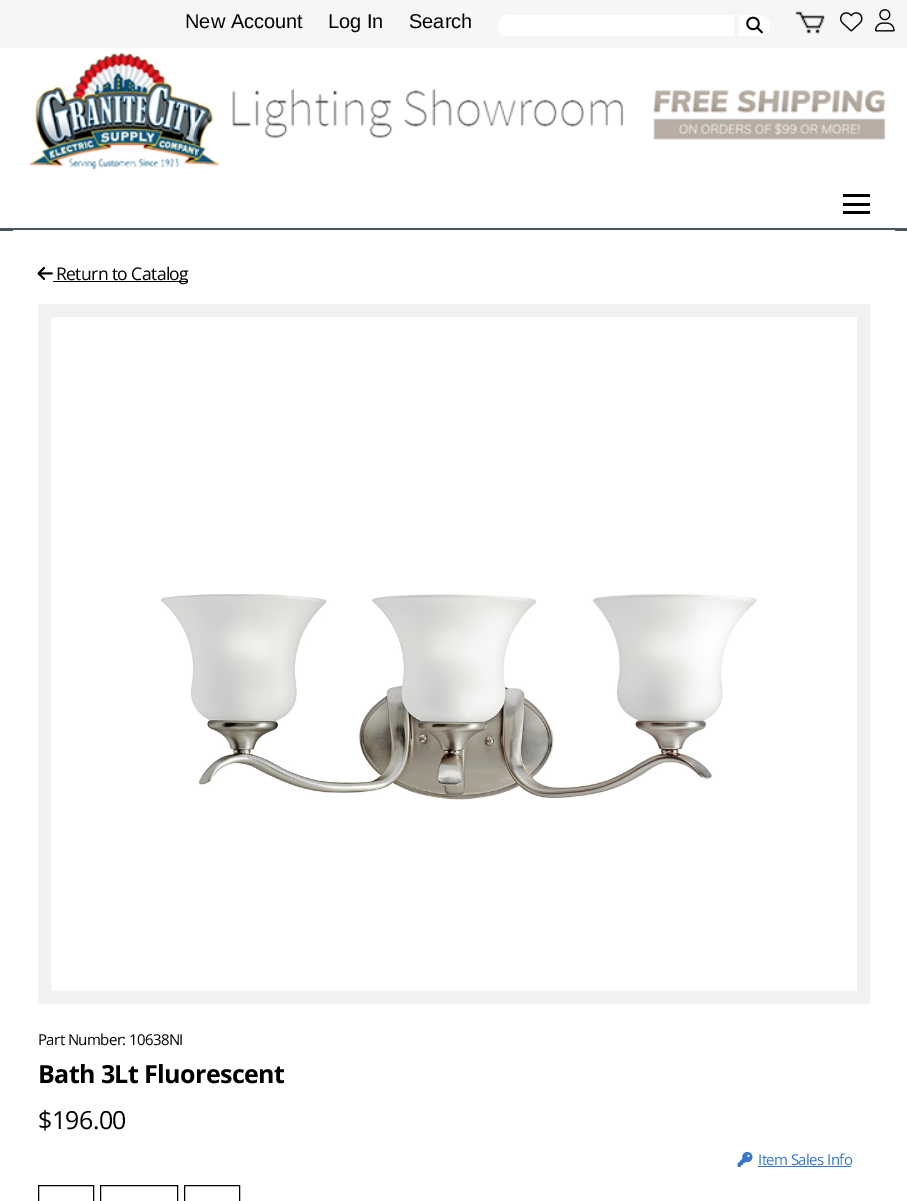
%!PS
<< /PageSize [907 1201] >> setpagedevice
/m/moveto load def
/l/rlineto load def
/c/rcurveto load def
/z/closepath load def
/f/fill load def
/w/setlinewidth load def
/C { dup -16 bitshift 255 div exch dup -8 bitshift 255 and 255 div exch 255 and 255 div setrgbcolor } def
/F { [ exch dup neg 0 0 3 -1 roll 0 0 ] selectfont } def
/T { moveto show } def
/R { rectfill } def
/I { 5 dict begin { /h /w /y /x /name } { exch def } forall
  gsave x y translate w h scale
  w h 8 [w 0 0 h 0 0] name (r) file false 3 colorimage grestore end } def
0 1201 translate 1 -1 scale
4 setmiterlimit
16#FFFFFF C
0 0 907 1201 R
16#F6F6F6 C
0 0 907 48 R
/LiberationSans-Regular 20 F
16#000000 C
(New Account) 185 28 T
(Log In) 328 28 T
(Search) 409 28 T
16#FFFFFF C
508.5 15 m 225.5 0 l 0 21 l -225.5 0 l -6 0 -10.5 -4.5 -10.5 -10.5 c 0 -6 4.5 -10.5 10.5 -10.5 c z f
739 15 m 20.5 0 l 6 0 10.5 4.5 10.5 10.5 c 0 6 -4.5 10.5 -10.5 10.5 c -20.5 0 l z f
(1.rgb) 746 16 17 18 I
(2.rgb) 795 11 31 23 I
(3.rgb) 840 12 23 20 I
(4.rgb) 875 9 20 23 I
16#4D565C C
0 228 907 3 R
(5.rgb) 28 52 858 118 I
16#000000 C
843 194 27 3 R
843 203 27 3 R
843 211 27 3 R
16#FFFFFF C
13 230 882 1 R
(6.rgb) 37 266 16 14 I
16#000000 C
53 281 135 1 R
/OpenSans-Regular 17.5 F
56 280 m -.6 0 (Return to Catalog) ashow
16#F1F1F1 C
13 w
44.5 310.5 819 687 rectstroke
(7.rgb) 160 593 597 207 I
/OpenSans-Regular 15 F
16#000000 C
38 1045 m -.6 0 (Part Number: 10638NI) ashow
/OpenSans-Bold 25 F
38 1083 m -.6 0 (Bath 3Lt Fluorescent) ashow
/OpenSans-Regular 25 F
38 1129 m -.6 0 ($196.00) ashow
(8.rgb) 737 1151 16 16 I
/OpenSans-Regular 15 F
16#3677CB C
758 1165 m -.6 0 (Item Sales Info) ashow
758 1166 93 1 R
16#000000 C
1 w
38.5 1185.5 55 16 rectstroke
100.5 1185.5 77 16 rectstroke
184.5 1185.5 55 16 rectstroke
showpage
